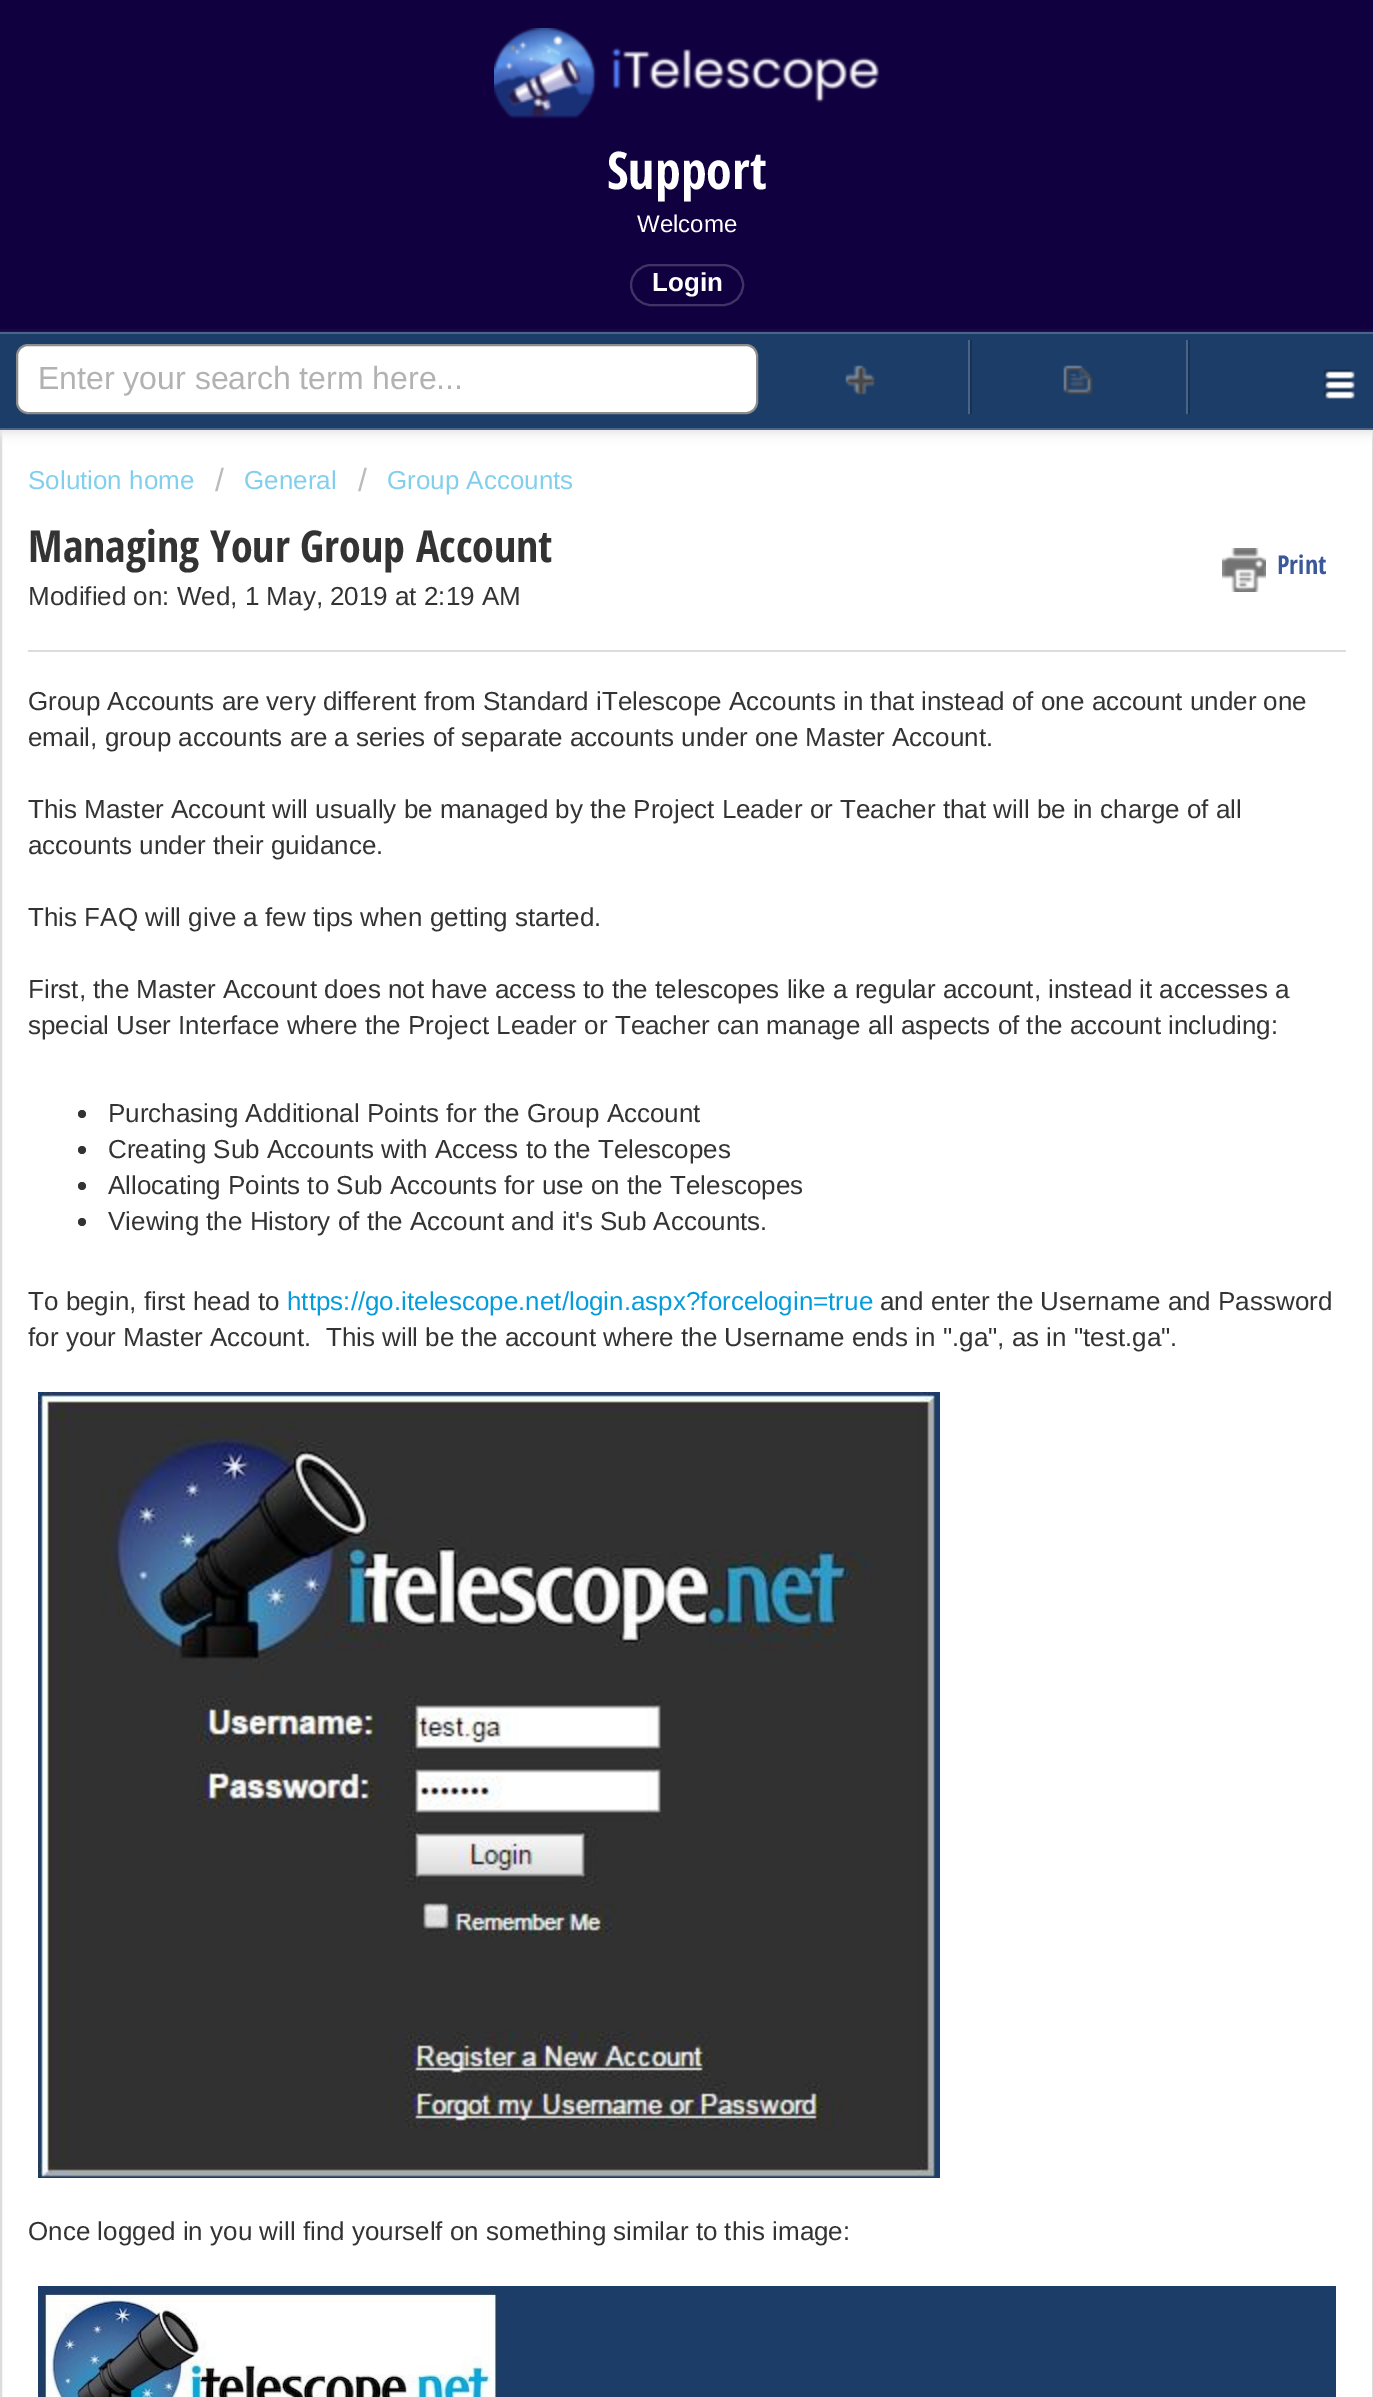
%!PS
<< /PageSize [1373 2397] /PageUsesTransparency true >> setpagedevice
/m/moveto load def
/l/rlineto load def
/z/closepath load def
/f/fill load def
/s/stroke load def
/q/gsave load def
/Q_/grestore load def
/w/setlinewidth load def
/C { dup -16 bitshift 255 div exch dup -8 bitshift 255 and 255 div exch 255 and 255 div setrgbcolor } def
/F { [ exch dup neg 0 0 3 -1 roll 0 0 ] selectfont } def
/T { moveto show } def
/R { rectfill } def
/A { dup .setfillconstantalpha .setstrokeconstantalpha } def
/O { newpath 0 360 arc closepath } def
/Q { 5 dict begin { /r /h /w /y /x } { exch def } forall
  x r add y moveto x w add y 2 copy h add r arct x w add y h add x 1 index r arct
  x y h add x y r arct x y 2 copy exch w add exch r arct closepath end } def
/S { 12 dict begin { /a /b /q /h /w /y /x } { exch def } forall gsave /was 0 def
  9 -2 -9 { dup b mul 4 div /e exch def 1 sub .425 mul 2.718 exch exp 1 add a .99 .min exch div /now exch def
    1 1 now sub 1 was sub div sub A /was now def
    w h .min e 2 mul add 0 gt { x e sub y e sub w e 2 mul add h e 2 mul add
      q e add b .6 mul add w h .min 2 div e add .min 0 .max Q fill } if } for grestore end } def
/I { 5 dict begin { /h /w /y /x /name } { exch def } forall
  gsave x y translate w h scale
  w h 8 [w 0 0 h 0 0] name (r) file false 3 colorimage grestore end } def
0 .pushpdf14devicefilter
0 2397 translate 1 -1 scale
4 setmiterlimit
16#110040 C
0 0 1373 2397 R
(1.rgb) 494 28 386 91 I
/OpenSansCondensed-Bold 52 F
16#FFFFFF C
(Support) 607 189 T
/LiberationSans-Regular 24 F
(Welcome) 637 232 T
16#413366 C
2 w
631 265 112 40 20 Q s
/LiberationSans-Bold 26 F
16#FFFFFF C
(Login) 652 291 T
1 431 m 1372 0 l 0 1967 l -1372 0 l z q f Q_
16#DCDCDC C
s
16#EEEEEE C
0 338 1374 98 0 4 1 S
16#1C3D68 C
0 334 1373 94 R
16#496486 C
0 332 1373 2 R
0 428 1373 2 R
(2.rgb) 1323 369 32 30 I
16#FFFFFF C
17 345 740 68 11 Q q f Q_
16#8C8C8C C
s
/LiberationSans-Regular 32 F
16#B2B2B2 C
(Enter your search term here...) 38 389 T
16#163153 C
970 340 2 74 R
16#496486 C
968 340 2 74 R
(3.rgb) 845 365 30 30 I
16#163153 C
1188 340 2 74 R
16#496486 C
1186 340 2 74 R
(4.rgb) 1063 365 30 30 I
/LiberationSans-Regular 26 F
16#82CEED C
(Solution home) 28 489 T
/LiberationSans-Regular 32 F
16#BBBBBB C
(/) 215 491 T
/LiberationSans-Regular 26 F
16#82CEED C
(General) 244 489 T
/LiberationSans-Regular 32 F
16#BBBBBB C
(/) 358 491 T
/LiberationSans-Regular 26 F
16#82CEED C
(Group Accounts) 387 489 T
/OpenSansCondensed-Bold 44 F
16#333333 C
(Managing Your Group Account) 28 562 T
(5.rgb) 1222 548 44 44 I
/OpenSansCondensed-Bold 26 F
16#3B5998 C
(Print) 1277 574 T
/LiberationSans-Regular 26 F
16#333333 C
(Modified on: Wed, 1 May, 2019 at 2:19 AM) 28 605 T
16#DCDCDC C
28 650 1318 2 R
16#333333 C
(Group Accounts are very different from Standard iTelescope Accounts in that instead of one account under one) 28 710 T
(email, group accounts are a series of separate accounts under one Master Account.) 28 746 T
(This Master Account will usually be managed by the Project Leader or Teacher that will be in charge of all) 28 818 T
(accounts under their guidance.) 28 854 T
(This FAQ will give a few tips when getting started.) 28 926 T
(First, the Master Account does not have access to the telescopes like a regular account, instead it accesses a) 28 998 T
(special User Interface where the Project Leader or Teacher can manage all aspects of the account including:) 28 1034 T
82 1114 4 O f
(Purchasing Additional Points for the Group Account) 108 1122 T
82 1150 4 O f
(Creating Sub Accounts with Access to the Telescopes) 108 1158 T
82 1186 4 O f
(Allocating Points to Sub Accounts for use on the Telescopes) 108 1194 T
82 1222 4 O f
(Viewing the History of the Account and it's Sub Accounts.) 108 1230 T
(To begin, first head to) 28 1310 T
16#049CDB C
(https://go.itelescope.net/login.aspx?forcelogin=true) 287 1310 T
16#333333 C
(and enter the Username and Password) 880 1310 T
(for your Master Account.  This will be the account where the Username ends in ".ga", as in "test.ga".) 28 1346 T
(6.rgb) 38 1392 902 786 I
(Once logged in you will find yourself on something similar to this image:) 28 2240 T
(7.rgb) 38 2286 1298 111 I
.poppdf14devicefilter showpage
